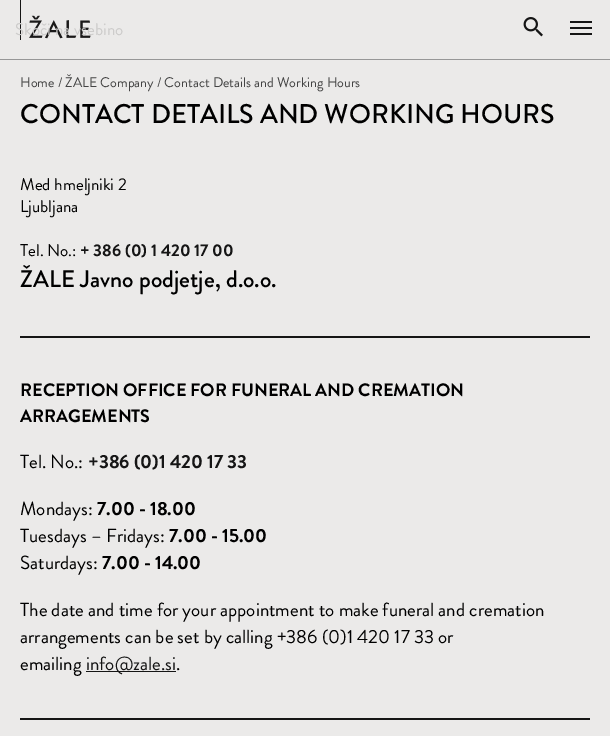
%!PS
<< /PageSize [610 736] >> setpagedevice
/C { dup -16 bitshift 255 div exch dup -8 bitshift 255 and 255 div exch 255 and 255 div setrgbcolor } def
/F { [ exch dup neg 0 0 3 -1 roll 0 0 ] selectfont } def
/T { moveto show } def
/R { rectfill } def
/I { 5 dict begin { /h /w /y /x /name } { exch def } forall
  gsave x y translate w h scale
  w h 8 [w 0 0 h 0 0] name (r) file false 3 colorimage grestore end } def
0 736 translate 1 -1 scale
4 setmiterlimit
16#EBEAE9 C
0 0 610 736 R
16#979797 C
0 59 610 1 R
(1.rgb) 20 0 71 40 I
(2.rgb) 523 17 20 20 I
16#151515 C
570 21 22 2 R
570 27 22 2 R
570 33 22 2 R
/BrandonGrotesque-Regular 17 F
16#CDCCCB C
(Skoči na vsebino) 15 35 T
/BrandonGrotesque-Regular 14 F
16#444444 C
(Home / ŽALE Company / Contact Details and Working Hours) 20 87 T
/BrandonGrotesque-Medium 27 F
16#000000 C
(CONTACT DETAILS AND WORKING HOURS) 20 123 T
/BrandonGrotesque-Regular 17 F
(Med hmeljniki 2) 20 190 T
(Ljubljana) 20 212 T
(Tel. No.:) 20 256 T
/BrandonGrotesque-Bold 17 F
16#151515 C
(+ 386 \(0\) 1 420 17 00) 80 256 T
/BrandonGrotesque-Medium 24 F
16#000000 C
(ŽALE Javno podjetje, d.o.o.) 20 287 T
16#151515 C
20 336 570 2 R
/BrandonGrotesque-Bold 18 F
16#000000 C
(RECEPTION OFFICE FOR FUNERAL AND CREMATION) 20 396 T
(ARRAGEMENTS) 20 422 T
/BrandonGrotesque-Regular 19 F
(Tel. No.:) 20 468 T
/BrandonGrotesque-Bold 19 F
16#151515 C
(+386 \(0\)1 420 17 33) 88 468 T
/BrandonGrotesque-Regular 19 F
16#000000 C
(Mondays:) 20 515 T
/BrandonGrotesque-Bold 19 F
(7.00 - 18.00) 97 515 T
/BrandonGrotesque-Regular 19 F
(Tuesdays – Fridays:) 20 542 T
/BrandonGrotesque-Bold 19 F
(7.00 - 15.00) 169 542 T
/BrandonGrotesque-Regular 19 F
(Saturdays:) 20 569 T
/BrandonGrotesque-Bold 19 F
(7.00 - 14.00) 102 569 T
/BrandonGrotesque-Regular 19 F
(The date and time for your appointment to make funeral and cremation) 20 616 T
(arrangements can be set by calling +386 \(0\)1 420 17 33 or) 20 643 T
(emailing) 20 670 T
16#151515 C
86 671 90 1 R
(info@zale.si) 86 670 T
16#000000 C
(.) 176 670 T
16#151515 C
20 718 570 2 R
showpage
